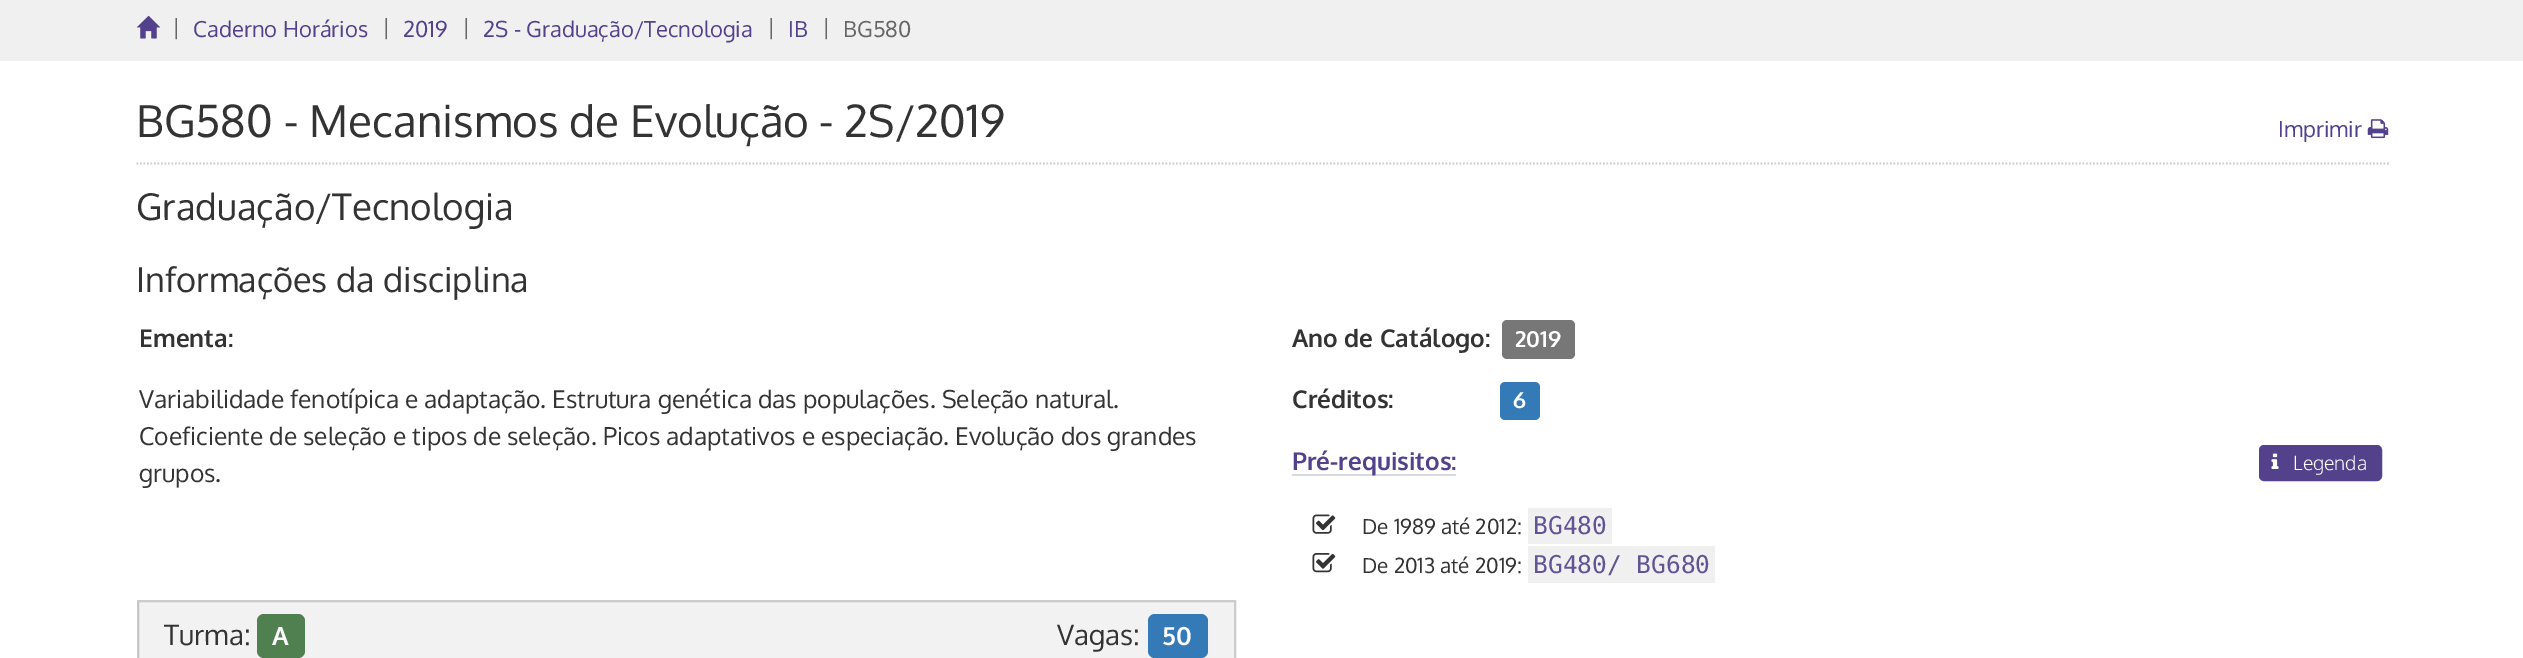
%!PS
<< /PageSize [2523 658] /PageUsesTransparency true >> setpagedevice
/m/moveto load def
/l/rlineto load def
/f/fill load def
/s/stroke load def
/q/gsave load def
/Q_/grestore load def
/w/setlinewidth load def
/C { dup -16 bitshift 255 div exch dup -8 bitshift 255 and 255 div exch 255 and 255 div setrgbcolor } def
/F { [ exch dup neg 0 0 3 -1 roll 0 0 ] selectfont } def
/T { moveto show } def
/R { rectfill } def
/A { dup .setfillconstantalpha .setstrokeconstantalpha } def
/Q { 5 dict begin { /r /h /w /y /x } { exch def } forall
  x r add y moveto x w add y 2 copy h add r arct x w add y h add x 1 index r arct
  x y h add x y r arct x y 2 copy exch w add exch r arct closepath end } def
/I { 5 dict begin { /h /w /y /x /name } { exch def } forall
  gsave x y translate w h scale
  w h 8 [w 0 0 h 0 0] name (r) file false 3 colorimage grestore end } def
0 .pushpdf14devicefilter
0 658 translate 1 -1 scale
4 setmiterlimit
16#FFFFFF C
0 0 2523 658 R
16#F0F0F0 C
0 0 2523 61 R
(1.rgb) 136 15 25 24 I
/Oxygen-Regular 22 F
16#666666 C
(|) 172 35 T
16#53428B C
(Caderno Horários) 193 37 T
16#666666 C
(|) 382 35 T
16#53428B C
(2019) 403 37 T
16#666666 C
(|) 462 35 T
16#53428B C
(2S - Graduação/Tecnologia) 483 37 T
16#666666 C
(|) 767 35 T
16#53428B C
(IB) 788 37 T
16#666666 C
(|) 822 35 T
(BG580) 843 37 T
16#CCCCCC C
1.8 w
[1.75 1.75] 0 setdash
136.5 163.5 m 2252.5 0 l s
/Oxygen-Regular 44.1 F
16#333333 C
(BG580 - Mecanismos de Evolução) 136 137 T
(- 2S/2019) 819 137 T
/Oxygen-Regular 22 F
16#53428B C
(Imprimir) 2278 137 T
(2.rgb) 2367 119 22 20 I
/Oxygen-Regular 36.75 F
16#333333 C
(Graduação/Tecnologia) 136 220 T
/Oxygen-Regular 34.25 F
(Informações da disciplina) 136 292 T
/Oxygen-Bold 24.5 F
(Ementa:) 139 347 T
/Oxygen-Regular 24.5 F
(Variabilidade fenotípica e adaptação. Estrutura genética das populações. Seleção natural.) 139 408 T
(Coeficiente de seleção e tipos de seleção. Picos adaptativos e especiação. Evolução dos grandes) 139 445 T
(grupos.) 139 482 T
/Oxygen-Bold 24.5 F
(Ano de Catálogo:) 1292 347 T
16#777777 C
1502 320 73 39 5 Q f
/Oxygen-Bold 22 F
16#FFFFFF C
(2019) 1515 347 T
/Oxygen-Bold 24.5 F
16#333333 C
(Créditos:) 1292 408 T
16#337AB7 C
1500 382 40 38 5 Q f
/Oxygen-Bold 22 F
16#FFFFFF C
(6) 1513 408 T
16#D6DBDF C
1292 474 164 2 R
/Oxygen-Bold 24.5 F
16#53428B C
(Pré-requisitos:) 1292 470 T
2260 446 121 34 4 Q q f Q_
2 w
[] 0 setdash
s
(3.rgb) 2271 453 8 16 I
/Oxygen-Light 19.5 F
16#FFFFFF C
(Legenda) 2293 470 T
(4.rgb) 1312 514 24 20 I
/Oxygen-Regular 20.75 F
16#333333 C
(De 1989 até 2012:) 1362 534 T
16#F0F0F0 C
1528 508 84 36 R
/DejaVuSansMono-Regular 24.5 F
16#625395 C
(BG480) 1533 534 T
(5.rgb) 1312 553 24 20 I
/Oxygen-Regular 20.75 F
16#333333 C
(De 2013 até 2019:) 1362 573 T
16#F0F0F0 C
1528 546 187 37 R
/DejaVuSansMono-Regular 24.5 F
16#625395 C
(BG480/ BG680) 1533 573 T
16#CCCCCC C
138 601 1097 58 rectstroke
0.05 A
16#000000 C
138 602 1096 56 R
/Oxygen-Regular 28 F
1 A
16#333333 C
(Turma:) 164 645 T
16#508050 C
257 614 48 44 7 Q f
/Oxygen-Bold 25 F
16#FFFFFF C
(A) 272 645 T
/Oxygen-Regular 28 F
16#333333 C
(Vagas:) 1057 645 T
16#337AB7 C
1148 614 60 44 7 Q f
/Oxygen-Bold 25 F
16#FFFFFF C
(50) 1162 645 T
.poppdf14devicefilter showpage
